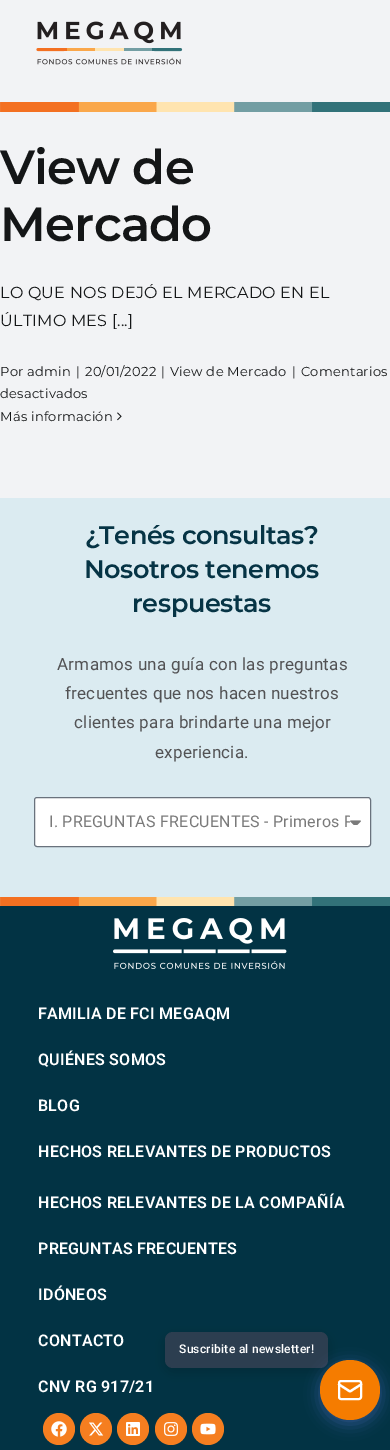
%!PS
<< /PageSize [390 1450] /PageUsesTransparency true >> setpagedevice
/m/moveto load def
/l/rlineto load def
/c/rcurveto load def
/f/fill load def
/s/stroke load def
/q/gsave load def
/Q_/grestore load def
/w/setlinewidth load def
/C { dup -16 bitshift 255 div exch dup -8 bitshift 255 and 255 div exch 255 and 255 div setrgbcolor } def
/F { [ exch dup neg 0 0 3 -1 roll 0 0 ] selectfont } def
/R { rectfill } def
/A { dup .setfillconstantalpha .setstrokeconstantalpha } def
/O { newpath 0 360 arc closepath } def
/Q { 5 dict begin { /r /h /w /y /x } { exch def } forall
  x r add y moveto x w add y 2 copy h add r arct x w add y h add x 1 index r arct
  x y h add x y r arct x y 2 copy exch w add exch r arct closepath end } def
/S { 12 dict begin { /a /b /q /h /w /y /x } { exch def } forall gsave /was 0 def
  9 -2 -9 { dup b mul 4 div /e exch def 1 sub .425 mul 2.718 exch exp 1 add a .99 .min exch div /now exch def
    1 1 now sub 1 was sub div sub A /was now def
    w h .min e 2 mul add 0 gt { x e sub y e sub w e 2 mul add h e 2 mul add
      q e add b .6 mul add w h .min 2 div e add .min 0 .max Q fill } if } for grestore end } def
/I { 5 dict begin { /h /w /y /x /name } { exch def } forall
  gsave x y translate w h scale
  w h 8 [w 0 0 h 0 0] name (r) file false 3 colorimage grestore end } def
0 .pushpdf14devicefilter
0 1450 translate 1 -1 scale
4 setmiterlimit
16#F2F3F5 C
0 0 390 1450 R
q
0 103 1 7 rectclip
16#000000 C
0 -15 390 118 0 5 .5 S
Q_
(1.rgb) 36 21 147 44 I
(2.rgb) 0 102 390 10 I
/Montserrat-SemiBold 48 F
16#141617 C
0 184 m -.75 0 (View de) ashow
0 241 m -.75 0 (Mercado) ashow
/Montserrat-Regular 16 F
0 298 m .25 0 (LO QUE NOS DEJÓ EL MERCADO EN EL) ashow
0 326 m .25 0 (ÚLTIMO MES [...]) ashow
/Montserrat-Regular 13 F
0 376 m .25 0 (Por admin) ashow
76 376 m .25 0 (|) ashow
85 376 m .25 0 (20/01/2022) ashow
161 376 m .25 0 (|) ashow
170 376 m .25 0 (View de Mercado) ashow
292 376 m .25 0 (|) ashow
301 376 m .25 0 (Comentarios) ashow
0 398 m .25 0 (desactivados) ashow
0 421 m .25 0 (Más información) ashow
(3.rgb) 117 412 5 9 I
16#DBEBF1 C
0 498 390 400 R
/Montserrat-SemiBold 25.5 F
16#063445 C
85 544 m -.4 0 (¿Tenés consultas?) ashow
84 578 m -.4 0 (Nosotros tenemos) ashow
132 612 m -.4 0 (respuestas) ashow
/Roboto-Regular 17 F
16#525254 C
57 670 m .25 0 (Armamos una guía con las preguntas) ashow
65 699 m .25 0 (frecuentes que nos hacen nuestros) ashow
74 728 m .25 0 (clientes para brindarte una mejor) ashow
155 758 m .25 0 (experiencia.) ashow
16#FFFFFF C
34.5 797.5 336 49 2.5 Q q f Q_
16#69727D C
s
q
49 808 301 28 rectclip
/Roboto-Regular 16 F
16#7A7A7A C
49 827 m .25 0 (I. PREGUNTAS FRECUENTES - Primeros P) ashow
Q_
(4.rgb) 350 820 11 5 I
(5.rgb) 0 897 390 9 I
16#023344 C
0 906 390 544 R
(6.rgb) 113 918 174 51 I
/Roboto-SemiBold 16 F
16#FFFFFF C
38 1019 m .25 0 (FAMILIA DE FCI MEGAQM) ashow
38 1065 m .25 0 (QUIÉNES SOMOS) ashow
38 1111 m .25 0 (BLOG) ashow
38 1157 m .25 0 (HECHOS RELEVANTES DE PRODUCTOS) ashow
38 1208 m .25 0 (HECHOS RELEVANTES DE LA COMPAÑÍA) ashow
38 1254 m .25 0 (PREGUNTAS FRECUENTES) ashow
38 1300 m .25 0 (IDÓNEOS) ashow
38 1346 m .25 0 (CONTACTO) ashow
38 1392 m .25 0 (CNV RG 917/21) ashow
16#F57E20 C
59 1429 16 O f
(7.rgb) 51 1421 16 16 I
96 1429 16 O f
(8.rgb) 89 1422 15 14 I
133 1429 16 O f
(9.rgb) 126 1422 14 14 I
171 1429 16 O f
(10.rgb) 164 1422 14 14 I
208 1429 16 O f
(11.rgb) 200 1423 16 12 I
16#000000 C
165 1336 163 36 8 6 .15 S
16#2C3E50 C
165 1332 163 36 8 Q f
/Roboto-Medium 12 F
16#FFFFFF C
179 1353 m .25 0 (Suscribite al newsletter!) ashow
16#667EEA C
320 1364 60 60 30 7.5 .4 S
16#F57C00 C
350 1390 30 O f
16#FFFFFF C
2 w
339 1381 22 18 2 Q s
2.2 w
1 setlinecap
1 setlinejoin
339 1384.5 m 9.5 6 l 1 1 2 1 3 0 c 9.5 -6 l s
.poppdf14devicefilter showpage
